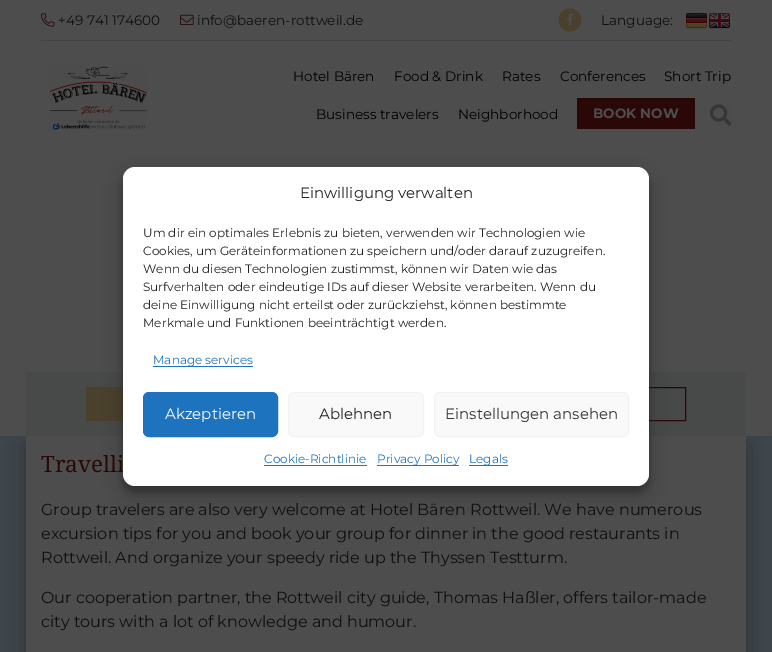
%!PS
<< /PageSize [772 652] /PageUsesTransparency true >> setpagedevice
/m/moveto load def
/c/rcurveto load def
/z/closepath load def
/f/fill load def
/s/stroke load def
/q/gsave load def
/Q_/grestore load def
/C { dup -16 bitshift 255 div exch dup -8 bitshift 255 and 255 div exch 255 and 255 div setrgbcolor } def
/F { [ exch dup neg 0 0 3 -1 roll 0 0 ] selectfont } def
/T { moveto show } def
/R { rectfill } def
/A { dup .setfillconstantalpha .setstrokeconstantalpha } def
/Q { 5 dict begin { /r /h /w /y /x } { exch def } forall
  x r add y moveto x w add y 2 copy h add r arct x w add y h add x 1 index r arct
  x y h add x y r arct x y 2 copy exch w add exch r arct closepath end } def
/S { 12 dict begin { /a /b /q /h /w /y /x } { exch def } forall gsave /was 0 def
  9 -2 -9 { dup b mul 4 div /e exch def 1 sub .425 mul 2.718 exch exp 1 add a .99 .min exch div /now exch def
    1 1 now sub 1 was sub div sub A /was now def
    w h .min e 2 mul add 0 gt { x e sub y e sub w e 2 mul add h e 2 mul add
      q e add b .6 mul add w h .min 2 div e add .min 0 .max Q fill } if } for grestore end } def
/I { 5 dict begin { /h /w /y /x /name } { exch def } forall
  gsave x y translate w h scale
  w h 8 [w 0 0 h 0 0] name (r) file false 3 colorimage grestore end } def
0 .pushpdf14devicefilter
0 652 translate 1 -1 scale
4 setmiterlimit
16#3E464B C
0 0 772 652 R
16#000000 C
26 446 720 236 0 10 .3 S
16#4D4D4D C
0 0 772 436 R
16#484A4A C
26 372 720 64 R
16#4A412C C
86 387 37 34 R
16#2B0808 C
506.5 387.5 179 33 rectstroke
16#434445 C
41 40 690 1 R
(1.rgb) 41 13 14 14 I
/Montserrat-Regular 13.6 F
16#101010 C
(+49 741 174600) 58 25 T
(2.rgb) 180 14 14 11 I
(info@baeren-rottweil.de) 197 25 T
16#4A412C C
570 8.5 m -15 0 -15 23 0 23 c 15 0 15 -23 0 -23 c z f
(3.rgb) 567 13 7 13 I
16#101010 C
(Language:) 601 25 T
(4.rgb) 686 13 21 16 I
(5.rgb) 709 13 21 16 I
(6.rgb) 49 66 98 64 I
16#000000 C
(Hotel Bären) 293 81 T
(Food & Drink) 394 81 T
(Rates) 502 81 T
(Conferences) 560 81 T
(Short Trip) 664 81 T
(Business travelers) 316 119 T
(Neighborhood) 458 119 T
16#2B0808 C
577 98 118 31 R
/Montserrat-Bold 13.6 F
16#4D4D4D C
(BOOK NOW) 593 118 T
(7.rgb) 710 104 22 22 I
26 436 720 216 R
16#000000 C
123 173 526 319 12 3 .23 S
123 177 526 319 12 10 .19 S
/NotoSerif-Regular 22.5 F
16#2B0808 C
(Travelli) 41 472 T
16#FFFFFF C
123 167 526 319 12 Q f
/Montserrat-Regular 15 F
16#222222 C
(Einwilligung verwalten) 300 198 T
/Montserrat-Regular 12 F
(Um dir ein optimales Erlebnis zu bieten, verwenden wir Technologien wie) 143 237 T
(Cookies, um Geräteinformationen zu speichern und/oder darauf zuzugreifen.) 143 255 T
(Wenn du diesen Technologien zustimmst, können wir Daten wie das) 143 273 T
(Surfverhalten oder eindeutige IDs auf dieser Website verarbeiten. Wenn du) 143 291 T
(deine Einwilligung nicht erteilst oder zurückziehst, können bestimmte) 143 309 T
(Merkmale und Funktionen beeinträchtigt werden.) 143 327 T
16#1E73BE C
153 366 100 1 R
(Manage services) 153 364 T
143.5 392.5 134 44 5.5 Q q f Q_
s
/Montserrat-Regular 15 F
16#FFFFFF C
(Akzeptieren) 165 419 T
16#F9F9F9 C
288.5 392.5 135 44 5.5 Q q f Q_
16#F2F2F2 C
s
16#222222 C
(Ablehnen) 319 419 T
16#F9F9F9 C
434.5 392.5 194 44 5.5 Q q f Q_
16#F2F2F2 C
s
16#333333 C
(Einstellungen ansehen) 445 419 T
/Montserrat-Regular 12 F
16#1E73BE C
(Cookie-Richtlinie) 264 463 T
264 465 103 1 R
377 465 82 1 R
(Privacy Policy) 377 463 T
469 465 39 1 R
(Legals) 469 463 T
/Montserrat-Regular 16 F
16#101010 C
(Group travelers are also very welcome at Hotel Bären Rottweil. We have numerous) 41 515 T
(excursion tips for you and book your group for dinner in the good restaurants in) 41 539 T
(Rottweil. And organize your speedy ride up the Thyssen Testturm.) 41 563 T
(Our cooperation partner, the Rottweil city guide, Thomas Haßler, offers tailor-made) 41 603 T
(city tours with a lot of knowledge and humour.) 41 627 T
.poppdf14devicefilter showpage
